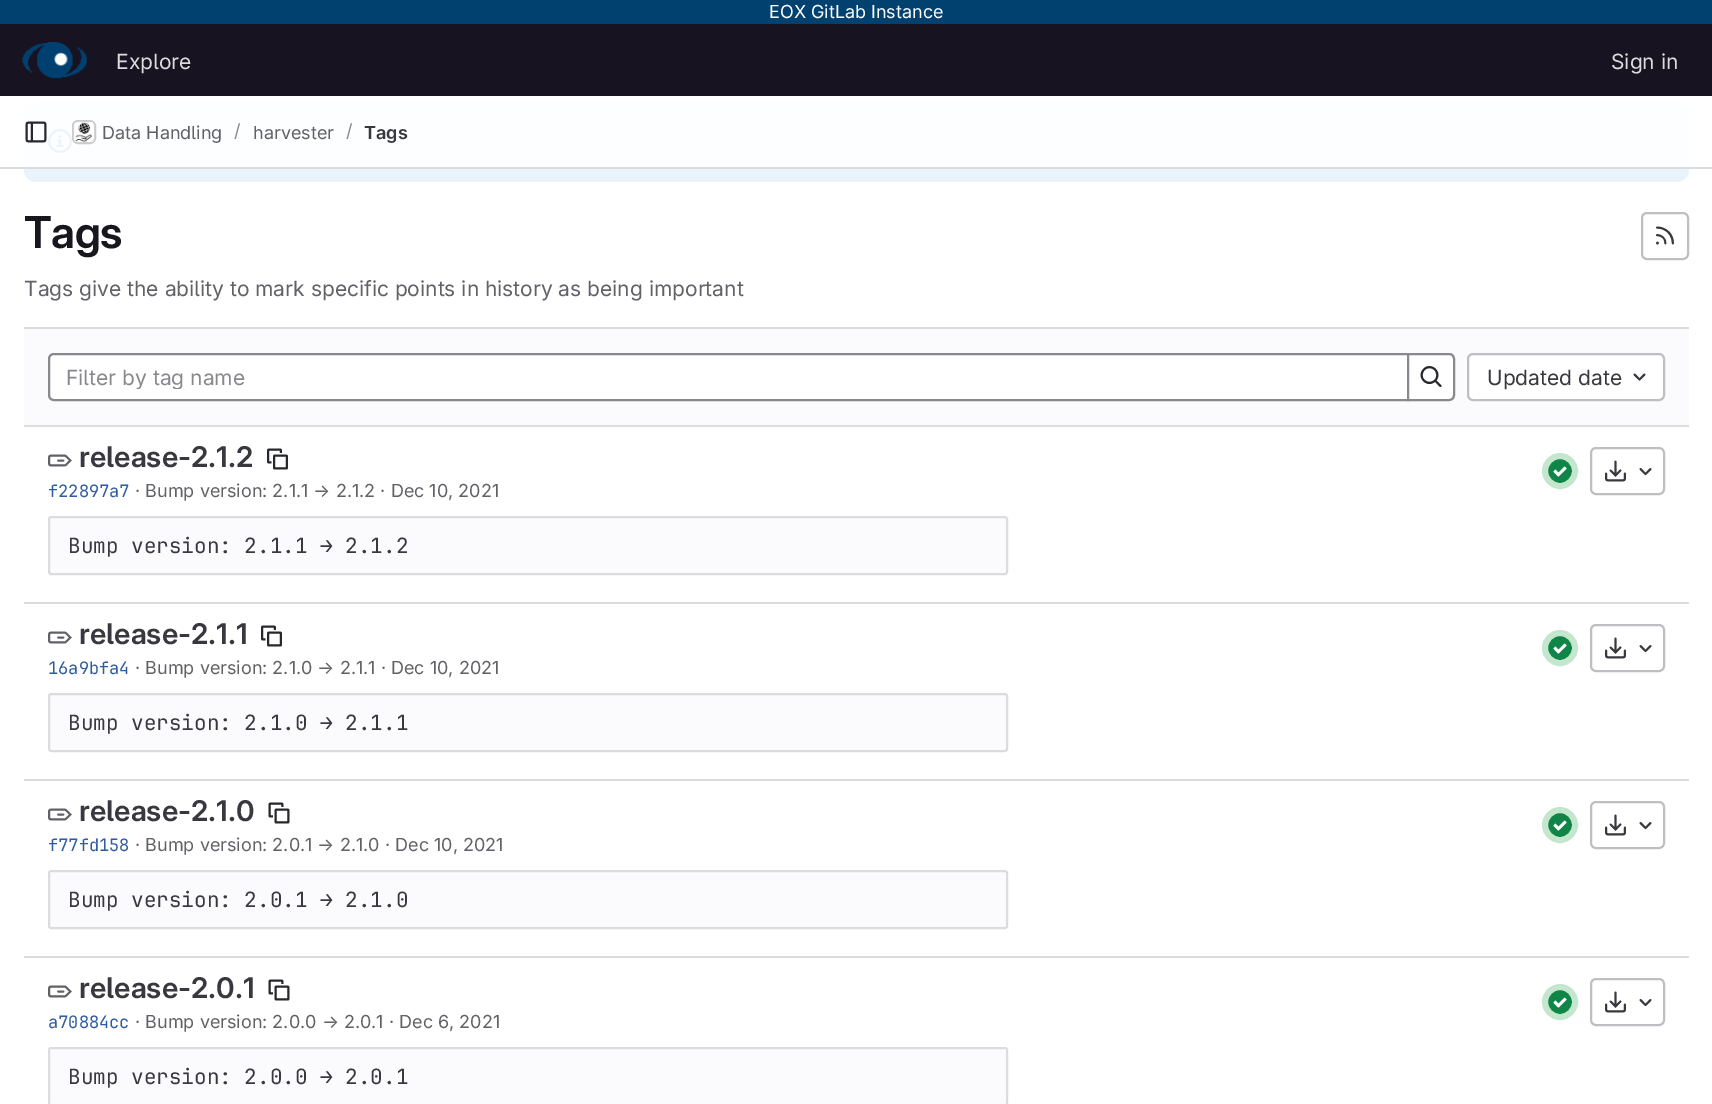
%!PS
<< /PageSize [1712 1104] /PageUsesTransparency true >> setpagedevice
/m/moveto load def
/l/rlineto load def
/c/rcurveto load def
/z/closepath load def
/f/fill load def
/s/stroke load def
/q/gsave load def
/Q_/grestore load def
/w/setlinewidth load def
/C { dup -16 bitshift 255 div exch dup -8 bitshift 255 and 255 div exch 255 and 255 div setrgbcolor } def
/F { [ exch dup neg 0 0 3 -1 roll 0 0 ] selectfont } def
/T { moveto show } def
/R { rectfill } def
/A { dup .setfillconstantalpha .setstrokeconstantalpha } def
/O { newpath 0 360 arc closepath } def
/Q { 5 dict begin { /r /h /w /y /x } { exch def } forall
  x r add y moveto x w add y 2 copy h add r arct x w add y h add x 1 index r arct
  x y h add x y r arct x y 2 copy exch w add exch r arct closepath end } def
/I { 5 dict begin { /h /w /y /x /name } { exch def } forall
  gsave x y translate w h scale
  w h 8 [w 0 0 h 0 0] name (r) file false 3 colorimage grestore end } def
0 .pushpdf14devicefilter
0 1104 translate 1 -1 scale
4 setmiterlimit
16#FFFFFF C
0 0 1712 1104 R
16#004170 C
0 0 1712 24 R
/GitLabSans-Regular 18 F
16#FFFFFF C
(EOX GitLab Instance) 769 18 T
16#171321 C
0 24 1712 72 R
(1.rgb) 22 42 65 36 I
/GitLabSans-Regular 21 F
16#DCDCDE C
(Explore) 116 69 T
(Sign in) 1611 69 T
16#E9F3FC C
24 102 1665 80 12 Q f
(2.rgb) 48 129 24 24 I
0.92 A
16#FFFFFF C
24 102 1665 65 R
1 A
16#DCDCDE C
0 167 1712 2 R
(3.rgb) 25 121 22 22 I
2 w
73 121 22 22 5 Q s
(4.rgb) 73 121 22 22 I
0.08 A
16#050506 C
73 121 22 22 5 Q s
/GitLabSans-Regular 18 F
1 A
16#626168 C
(Data Handling) 102 139 T
16#89888D C
(/) 234 137 T
16#626168 C
(harvester) 253 139 T
16#89888D C
(/) 346 137 T
/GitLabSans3-SemiBold 18 F
16#3A383F C
(Tags) 364 139 T
/GitLabSans-SemiBold 44 F
16#18171D C
24 248 m -.5 0 (Tags) ashow
16#BFBFC3 C
1642 213 46 46 5 Q s
(5.rgb) 1656 226 18 19 I
/GitLabSans-Regular 21 F
16#626168 C
(Tags give the ability to mark specific points in history as being important) 24 296 T
16#FBFAFD C
24 329 1665 96 R
16#DCDCDE C
24 327 1665 2 R
24 425 1665 2 R
16#FFFFFF C
54 354 m 1354 0 l 0 46 l -1354 0 l -3 0 -5 -2 -5 -5 c 0 -36 l 0 -3 2 -5 5 -5 c z q f Q_
16#89888D C
s
q
66 363 1295 26 rectclip
(Filter by tag name) 66 385 T
Q_
16#FFFFFF C
1408 354 m 41 0 l 3 0 5 2 5 5 c 0 36 l 0 3 -2 5 -5 5 c -41 0 l z q f Q_
16#89888D C
s
(6.rgb) 1420 366 22 21 I
16#FFFFFF C
1468 354 196 46 5 Q q f Q_
16#BFBFC3 C
s
16#3A383F C
(Updated date) 1487 385 T
(7.rgb) 1633 373 13 8 I
16#DCDCDE C
24 602 1665 2 R
(8.rgb) 48 454 24 13 I
/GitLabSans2-SemiBold 28.5 F
16#3A383F C
(release-2.1.2) 79 467 T
(9.rgb) 267 448 21 22 I
/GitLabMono-Regular 17 F
16#2F5CA0 C
(f22897a7) 48 497 T
/GitLabSans-Regular 18 F
16#626168 C
(· Bump version: 2.1.1 → 2.1.2 · Dec 10, 2021) 135 497 T
16#FBFAFD C
49 517 958 57 2 Q q f Q_
16#DCDCDE C
s
/GitLabMono-Regular 21 F
16#3A383F C
(Bump version: 2.1.1 → 2.1.2) 68 553 T
16#C3E6CD C
3 w
1560 471 16.5 O s
16#108548 C
1560 471 13.5 O q f Q_
16#C3E6CD C
s
(10.rgb) 1553 466 14 11 I
16#BFBFC3 C
2 w
1591 448 73 46 5 Q s
(11.rgb) 1605 460 21 22 I
(12.rgb) 1639 468 13 8 I
16#DCDCDE C
24 779 1665 2 R
(8.rgb) 48 631 24 13 I
/GitLabSans2-SemiBold 28.5 F
16#3A383F C
(release-2.1.1) 79 644 T
(9.rgb) 261 625 21 22 I
/GitLabMono-Regular 17 F
16#2F5CA0 C
(16a9bfa4) 48 674 T
/GitLabSans-Regular 18 F
16#626168 C
(· Bump version: 2.1.0 → 2.1.1 · Dec 10, 2021) 135 674 T
16#FBFAFD C
49 694 958 57 2 Q q f Q_
16#DCDCDE C
s
/GitLabMono-Regular 21 F
16#3A383F C
(Bump version: 2.1.0 → 2.1.1) 68 730 T
16#C3E6CD C
3 w
1560 648 16.5 O s
16#108548 C
1560 648 13.5 O q f Q_
16#C3E6CD C
s
(10.rgb) 1553 643 14 11 I
16#BFBFC3 C
2 w
1591 625 73 46 5 Q s
(11.rgb) 1605 637 21 22 I
(12.rgb) 1639 645 13 8 I
16#DCDCDE C
24 956 1665 2 R
(8.rgb) 48 808 24 13 I
/GitLabSans2-SemiBold 28.5 F
16#3A383F C
(release-2.1.0) 79 821 T
(13.rgb) 268 802 22 22 I
/GitLabMono-Regular 17 F
16#2F5CA0 C
(f77fd158) 48 851 T
/GitLabSans-Regular 18 F
16#626168 C
(· Bump version: 2.0.1 → 2.1.0 · Dec 10, 2021) 135 851 T
16#FBFAFD C
49 871 958 57 2 Q q f Q_
16#DCDCDE C
s
/GitLabMono-Regular 21 F
16#3A383F C
(Bump version: 2.0.1 → 2.1.0) 68 907 T
16#C3E6CD C
3 w
1560 825 16.5 O s
16#108548 C
1560 825 13.5 O q f Q_
16#C3E6CD C
s
(10.rgb) 1553 820 14 11 I
16#BFBFC3 C
2 w
1591 802 73 46 5 Q s
(11.rgb) 1605 814 21 22 I
(12.rgb) 1639 822 13 8 I
(8.rgb) 48 985 24 13 I
/GitLabSans2-SemiBold 28.5 F
16#3A383F C
(release-2.0.1) 79 998 T
(13.rgb) 268 979 22 22 I
/GitLabMono-Regular 17 F
16#2F5CA0 C
(a70884cc) 48 1028 T
/GitLabSans-Regular 18 F
16#626168 C
(· Bump version: 2.0.0 → 2.0.1 · Dec 6, 2021) 135 1028 T
16#FBFAFD C
49 1048 958 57 2 Q q f Q_
16#DCDCDE C
s
/GitLabMono-Regular 21 F
16#3A383F C
(Bump version: 2.0.0 → 2.0.1) 68 1084 T
16#C3E6CD C
3 w
1560 1002 16.5 O s
16#108548 C
1560 1002 13.5 O q f Q_
16#C3E6CD C
s
(10.rgb) 1553 997 14 11 I
16#BFBFC3 C
2 w
1591 979 73 46 5 Q s
(11.rgb) 1605 991 21 22 I
(12.rgb) 1639 999 13 8 I
.poppdf14devicefilter showpage
